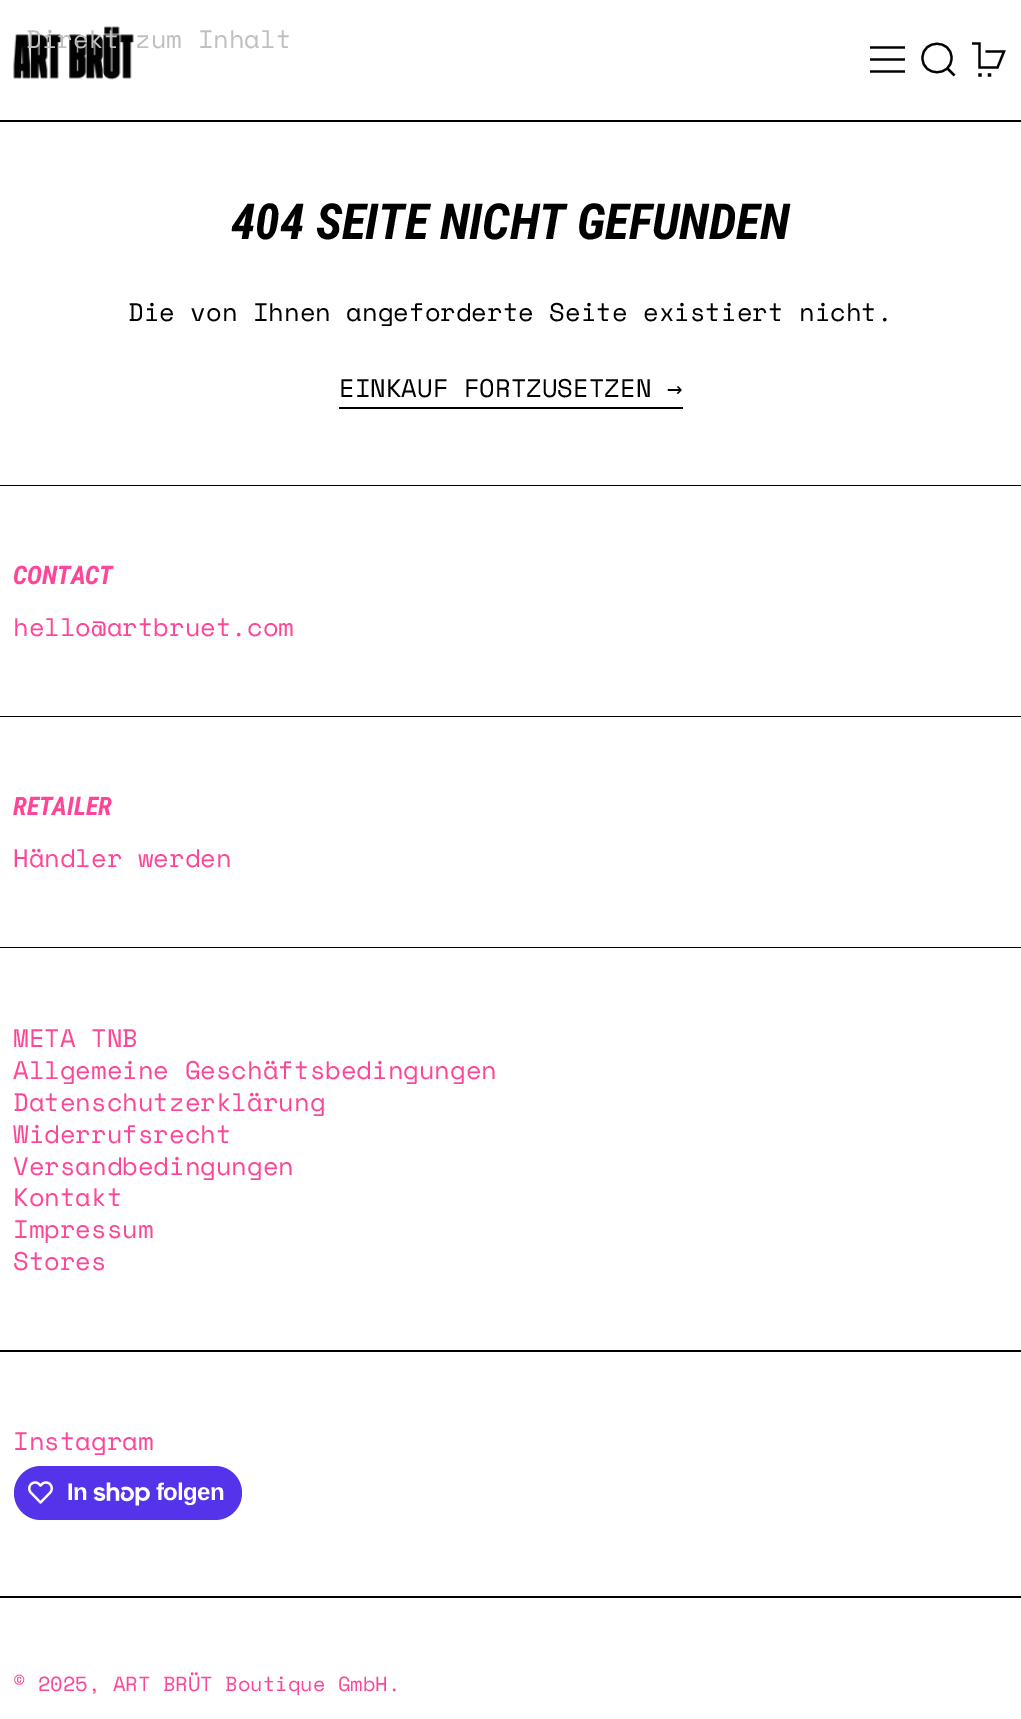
%!PS
<< /PageSize [1021 1719] >> setpagedevice
/m/moveto load def
/l/rlineto load def
/c/rcurveto load def
/z/closepath load def
/f/fill load def
/s/stroke load def
/w/setlinewidth load def
/C { dup -16 bitshift 255 div exch dup -8 bitshift 255 and 255 div exch 255 and 255 div setrgbcolor } def
/F { [ exch dup neg 0 0 3 -1 roll 0 0 ] selectfont } def
/T { moveto show } def
/R { rectfill } def
/Q { 5 dict begin { /r /h /w /y /x } { exch def } forall
  x r add y moveto x w add y 2 copy h add r arct x w add y h add x 1 index r arct
  x y h add x y r arct x y 2 copy exch w add exch r arct closepath end } def
/I { 5 dict begin { /h /w /y /x /name } { exch def } forall
  gsave x y translate w h scale
  w h 8 [w 0 0 h 0 0] name (r) file false 3 colorimage grestore end } def
0 1719 translate 1 -1 scale
4 setmiterlimit
16#FFFFFF C
0 0 1021 1719 R
16#000000 C
0 120 1021 2 R
(1.rgb) 13 26 121 54 I
2.2 w
870 47.5 m 35 0 l 870 59.5 m 35 0 l 870 71.5 m 35 0 l s
922.5 58 m 0 19 29 19 29 0 c 0 -19 -29 -19 -29 0 c z 947 68 m 7.5 7.5 l s
972 43.5 m 7.5 0 l 0 24 l 18 0 l 6.5 -16 l -18.5 0 l 979.5 75.5 m 0 -1 l 1 0 l 0 1 l z 989 75.5 m 0 -1 l 1 0 l 0 1 l z s
/SpaceMono-Regular 25.5 F
16#BFBFBF C
(Direkt zum Inhalt) 26 48 T
16#000000 C
0 485 1021 1 R
/RobotoCondensed-BoldItalic 49.75 F
(404 SEITE NICHT GEFUNDEN) 231 239 T
/SpaceMono-Regular 25.5 F
(Die von Ihnen angeforderte Seite existiert nicht.) 128 321 T
339 407 344 2 R
(EINKAUF FORTZUSETZEN) 339 397 T
/DejaVuSansMono-Regular 25.5 F
(→) 667 397 T
0 1596 1021 2 R
0 716 1021 636 R
/RobotoCondensed-BoldItalic 25.5 F
16#FD4698 C
(CONTACT) 13 584 T
/SpaceMono-Regular 25.5 F
(hello@artbruet.com) 13 636 T
16#FFFFFF C
0 717 1021 230 R
/RobotoCondensed-BoldItalic 25.5 F
16#FD4698 C
(RETAILER) 13 815 T
/SpaceMono-Regular 25.5 F
(Händler werden) 13 867 T
16#FFFFFF C
0 948 1021 402 R
16#FD4698 C
(META TNB) 13 1047 T
(Allgemeine Geschäftsbedingungen) 13 1079 T
(Datenschutzerklärung) 13 1111 T
(Widerrufsrecht) 13 1143 T
(Versandbedingungen) 13 1175 T
(Kontakt) 13 1206 T
(Impressum) 13 1238 T
(Stores) 13 1270 T
(Instagram) 13 1450 T
16#5433EB C
14 1466 228 54 27 Q f
(2.rgb) 28 1481 25 23 I
/LiberationSans-Bold 24 F
16#FFFFFF C
67 1500 m -.75 0 (In) ashow
(3.rgb) 93 1482 57 24 I
156 1500 m -.75 0 (folgen) ashow
/SpaceMono-Regular 20.4 F
16#FD4698 C
(© 2025, ART BRÜT Boutique GmbH.) 13 1691 T
showpage
